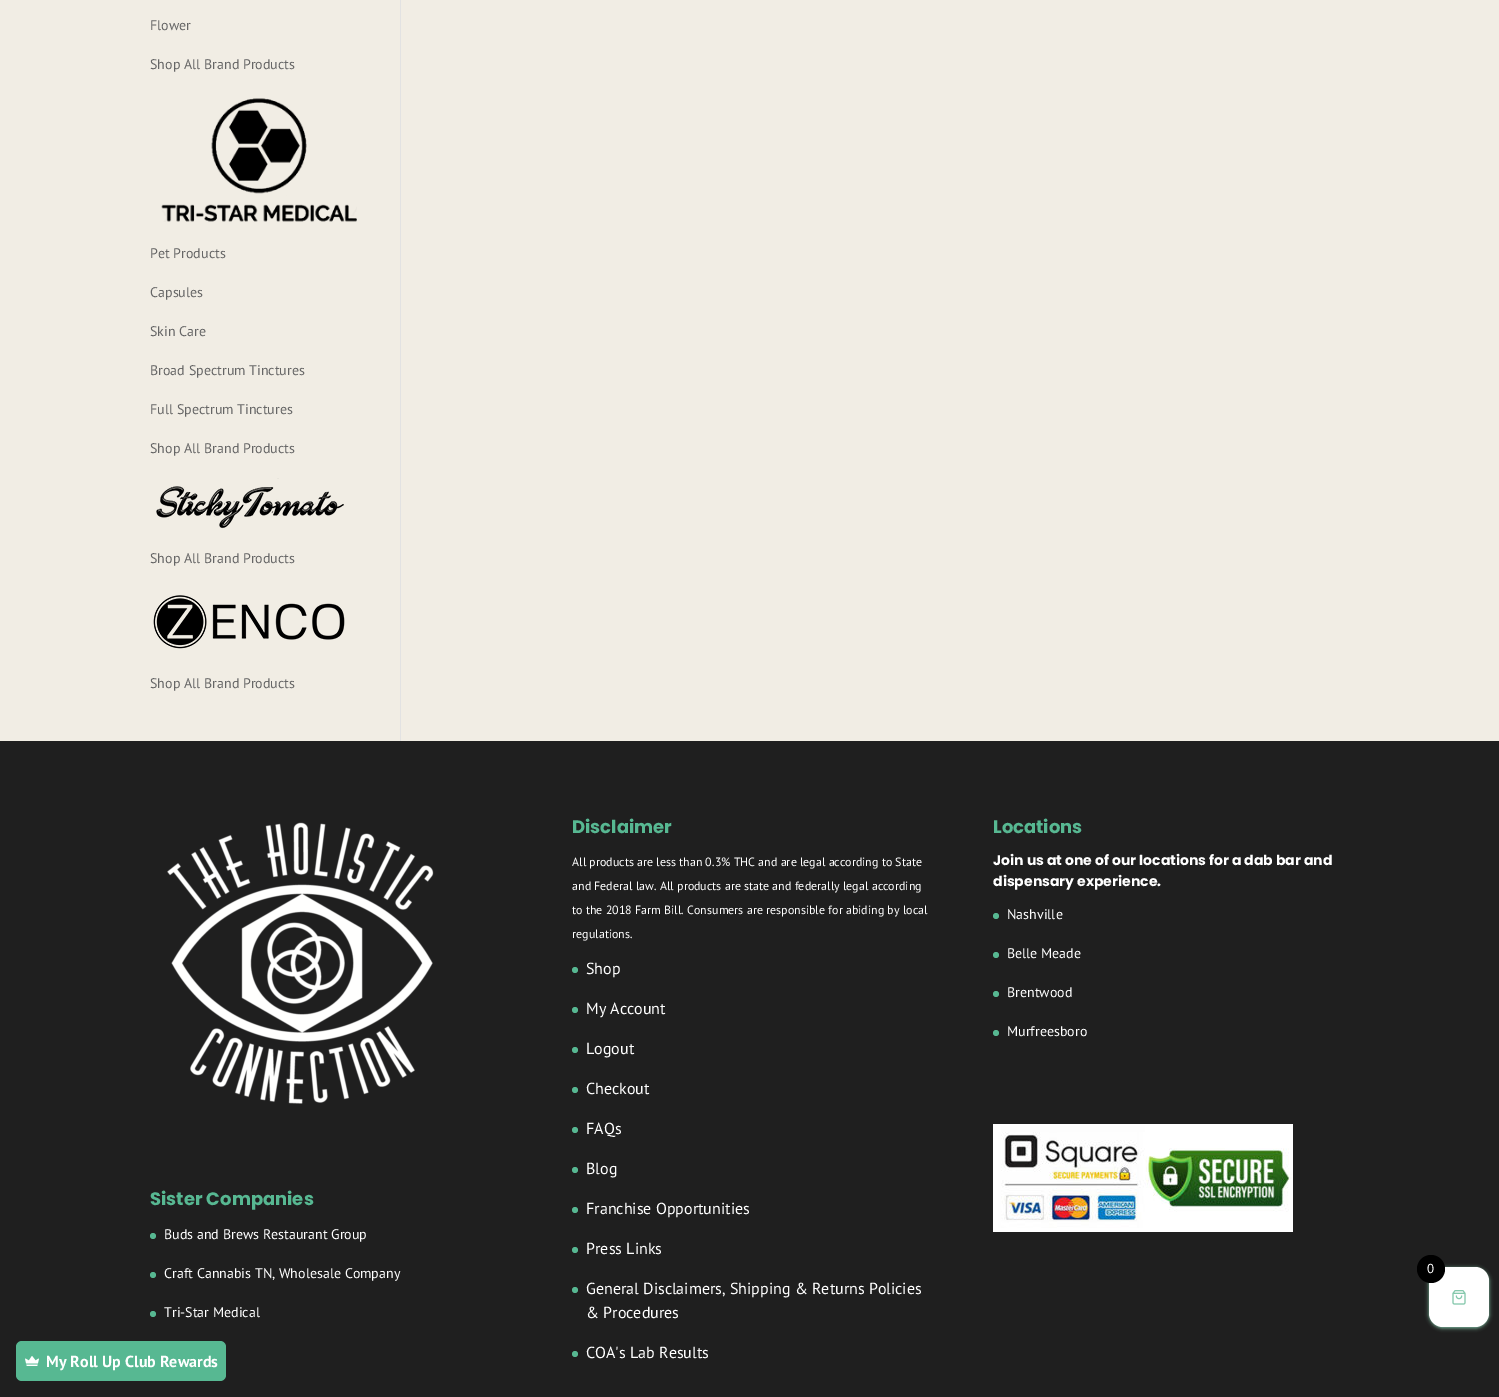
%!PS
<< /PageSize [1499 1397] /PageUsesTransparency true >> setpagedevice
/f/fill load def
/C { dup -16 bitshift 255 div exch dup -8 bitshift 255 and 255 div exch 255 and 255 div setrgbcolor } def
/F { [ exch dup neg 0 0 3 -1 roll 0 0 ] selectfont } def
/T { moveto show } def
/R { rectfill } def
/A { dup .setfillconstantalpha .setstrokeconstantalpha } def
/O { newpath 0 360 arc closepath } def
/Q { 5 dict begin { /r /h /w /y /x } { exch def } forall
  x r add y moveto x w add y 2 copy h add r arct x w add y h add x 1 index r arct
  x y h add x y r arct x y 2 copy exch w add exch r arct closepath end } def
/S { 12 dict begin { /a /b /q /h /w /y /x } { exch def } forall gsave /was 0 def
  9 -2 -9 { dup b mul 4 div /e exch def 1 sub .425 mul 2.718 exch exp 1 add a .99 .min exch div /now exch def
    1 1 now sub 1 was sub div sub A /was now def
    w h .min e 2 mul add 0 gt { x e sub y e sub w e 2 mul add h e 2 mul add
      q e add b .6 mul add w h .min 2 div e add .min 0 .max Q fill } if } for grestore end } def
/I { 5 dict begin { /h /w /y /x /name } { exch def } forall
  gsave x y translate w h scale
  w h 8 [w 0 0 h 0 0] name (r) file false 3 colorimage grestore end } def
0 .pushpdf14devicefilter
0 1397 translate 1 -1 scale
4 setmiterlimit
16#F1EDE4 C
0 0 1499 1397 R
/PTSans-Regular 14 F
16#666666 C
(Flower) 150 30 T
(Shop All Brand Products) 150 69 T
(1.rgb) 161 98 196 124 I
(Pet Products) 150 258 T
(Capsules) 150 297 T
(Skin Care) 150 336 T
(Broad Spectrum Tinctures) 150 375 T
(Full Spectrum Tinctures) 150 414 T
(Shop All Brand Products) 150 453 T
(2.rgb) 156 478 188 51 I
(Shop All Brand Products) 150 563 T
(3.rgb) 153 595 192 54 I
(Shop All Brand Products) 150 688 T
16#E2E2E2 C
400 0 1 741 R
16#1F1F1F C
0 741 1499 656 R
/Poppins-Bold 18 F
16#57B892 C
(Disclaimer) 572 833 T
/PTSans-Regular 12 F
16#FFFFFF C
(All products are less than 0.3% THC and are legal according to State) 572 866 T
(and Federal law. All products are state and federally legal according) 572 890 T
(to the 2018 Farm Bill. Consumers are responsible for abiding by local) 572 914 T
(regulations.) 572 938 T
16#57B892 C
575 970 3 O f
/PTSans-Regular 16 F
16#FFFFFF C
(Shop) 586 974 T
16#57B892 C
575 1010 3 O f
16#FFFFFF C
(My Account) 586 1014 T
16#57B892 C
575 1050 3 O f
16#FFFFFF C
(Logout) 586 1054 T
16#57B892 C
575 1090 3 O f
16#FFFFFF C
(Checkout) 586 1094 T
16#57B892 C
575 1130 3 O f
16#FFFFFF C
(FAQs) 586 1134 T
16#57B892 C
575 1170 3 O f
16#FFFFFF C
(Blog) 586 1174 T
16#57B892 C
575 1210 3 O f
16#FFFFFF C
(Franchise Opportunities) 586 1214 T
16#57B892 C
575 1250 3 O f
16#FFFFFF C
(Press Links) 586 1254 T
16#57B892 C
575 1290 3 O f
16#FFFFFF C
(General Disclaimers, Shipping & Returns Policies) 586 1294 T
(& Procedures) 586 1318 T
16#57B892 C
575 1354 3 O f
16#FFFFFF C
(COA's Lab Results) 586 1358 T
/Poppins-Bold 18 F
16#57B892 C
(Locations) 993 833 T
/Poppins-Bold 14 F
16#FFFFFF C
(Join us at one of our locations for a dab bar and) 993 865 T
(dispensary experience.) 993 886 T
16#57B892 C
996 916 3 O f
/PTSans-Regular 14 F
16#FFFFFF C
(Nashville) 1007 919 T
16#57B892 C
996 955 3 O f
16#FFFFFF C
(Belle Meade) 1007 958 T
16#57B892 C
996 994 3 O f
16#FFFFFF C
(Brentwood) 1007 997 T
16#57B892 C
996 1033 3 O f
16#FFFFFF C
(Murfreesboro) 1007 1036 T
(4.rgb) 993 1124 300 108 I
(5.rgb) 167 822 267 282 I
/Poppins-Bold 18 F
16#57B892 C
(Sister Companies) 150 1205 T
153 1236 3 O f
/PTSans-Regular 14 F
16#FFFFFF C
(Buds and Brews Restaurant Group) 164 1239 T
16#57B892 C
153 1275 3 O f
16#FFFFFF C
(Craft Cannabis TN, Wholesale Company) 164 1278 T
16#57B892 C
153 1314 3 O f
16#FFFFFF C
(Tri-Star Medical) 164 1317 T
16#85C8AC C
1429 1268 60 60 14 2 1 S
16#FFFFFF C
1429 1267 60 60 14 Q f
16#000000 C
1431 1269 14 O f
/PTSans-Regular 13 F
16#FFFFFF C
(0) 1427 1273 T
(6.rgb) 1452 1290 14 15 I
16#57B892 C
16 1341 210 40 6 Q f
(7.rgb) 25 1356 14 10 I
/PTSans-Bold 16 F
16#FFFFFF C
(My Roll Up Club Rewards) 46 1367 T
.poppdf14devicefilter showpage
